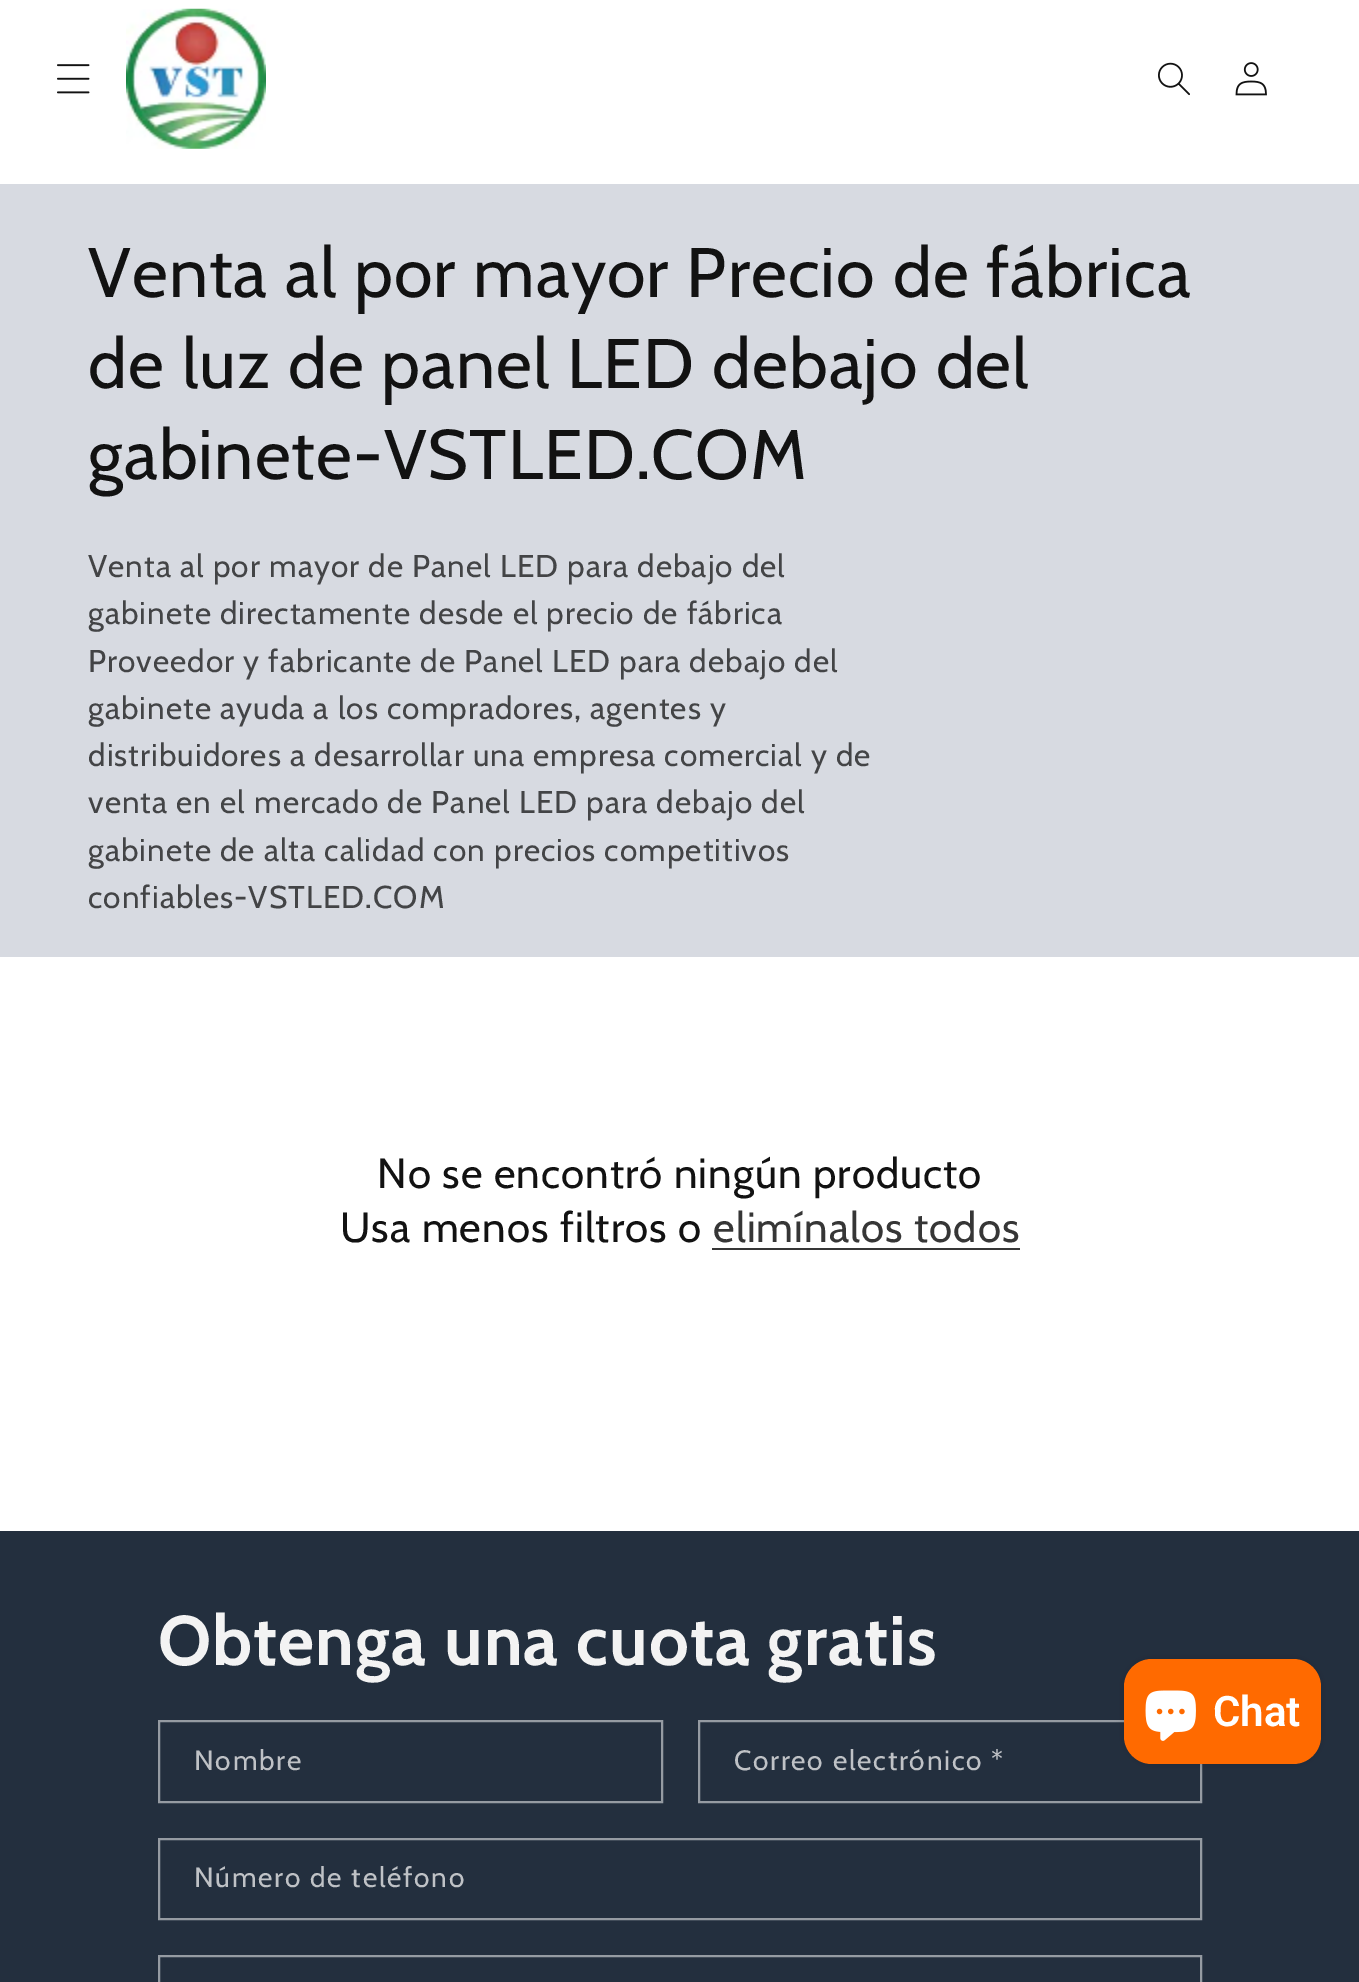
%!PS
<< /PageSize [1359 1982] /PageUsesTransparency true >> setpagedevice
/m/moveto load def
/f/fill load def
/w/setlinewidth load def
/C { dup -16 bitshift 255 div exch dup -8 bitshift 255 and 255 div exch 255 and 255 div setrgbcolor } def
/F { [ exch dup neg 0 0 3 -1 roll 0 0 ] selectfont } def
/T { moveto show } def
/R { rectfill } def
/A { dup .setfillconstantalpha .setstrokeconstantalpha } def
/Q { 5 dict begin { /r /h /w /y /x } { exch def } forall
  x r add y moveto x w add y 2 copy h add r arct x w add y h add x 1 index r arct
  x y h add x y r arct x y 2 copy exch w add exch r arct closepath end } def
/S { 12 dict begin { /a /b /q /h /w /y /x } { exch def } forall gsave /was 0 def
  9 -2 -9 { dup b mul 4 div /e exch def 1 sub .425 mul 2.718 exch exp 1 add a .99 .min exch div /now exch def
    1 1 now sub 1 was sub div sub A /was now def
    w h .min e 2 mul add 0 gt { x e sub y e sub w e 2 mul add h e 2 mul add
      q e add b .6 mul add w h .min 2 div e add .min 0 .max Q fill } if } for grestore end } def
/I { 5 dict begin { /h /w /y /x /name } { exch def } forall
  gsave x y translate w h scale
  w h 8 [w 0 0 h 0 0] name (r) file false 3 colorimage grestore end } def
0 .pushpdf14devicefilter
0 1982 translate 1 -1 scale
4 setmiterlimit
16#FFFFFF C
0 0 1359 1982 R
(1.rgb) 57 64 33 30 I
(2.rgb) 126 8 140 141 I
(3.rgb) 1158 62 32 34 I
(4.rgb) 1235 62 32 34 I
16#D7DAE1 C
0 184 1359 773 R
/Cabin-Regular 70 F
16#121212 C
88 297 m 1.05 0 (Venta al por mayor Precio de fábrica) ashow
88 388 m 1.05 0 (de luz de panel LED debajo del) ashow
88 479 m 1.05 0 (gabinete-VSTLED.COM) ashow
/Cabin-Regular 31.5 F
16#434446 C
88 577 m 1.05 0 (Venta al por mayor de Panel LED para debajo del) ashow
88 624 m 1.05 0 (gabinete directamente desde el precio de fábrica) ashow
88 672 m 1.05 0 (Proveedor y fabricante de Panel LED para debajo del) ashow
88 719 m 1.05 0 (gabinete ayuda a los compradores, agentes y) ashow
88 766 m 1.05 0 (distribuidores a desarrollar una empresa comercial y de) ashow
88 813 m 1.05 0 (venta en el mercado de Panel LED para debajo del) ashow
88 861 m 1.05 0 (gabinete de alta calidad con precios competitivos) ashow
88 908 m 1.05 0 (confiables-VSTLED.COM) ashow
/Cabin-Regular 42 F
16#121212 C
377 1188 m 1.05 0 (No se encontró ningún producto) ashow
340 1242 m 1.05 0 (Usa menos filtros o) ashow
16#363636 C
713 1242 m 1.05 0 (elimínalos todos) ashow
712 1248 308 2 R
16#232F3E C
0 1531 1359 451 R
/Cabin-Bold 70 F
16#F3F3F3 C
158 1665 m 1.05 0 (Obtenga una cuota gratis) ashow
16#959BA2 C
2 w
159 1721 503 81 rectstroke
/Cabin-Regular 28 F
16#BFC2C6 C
194 1770 m 1.75 0 (Nombre) ashow
16#959BA2 C
699 1721 502 81 rectstroke
16#BFC2C6 C
734 1770 m 1.75 0 (Correo electrónico *) ashow
16#959BA2 C
159 1839 1042 80 rectstroke
16#BFC2C6 C
194 1887 m 1.75 0 (Número de teléfono) ashow
16#959BA2 C
159 1956 1042 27 rectstroke
16#000000 C
1124 1659 197 105 28 4.5 .15 S
16#FF6A00 C
1124 1659 197 105 28 Q f
(5.rgb) 1145 1690 51 51 I
/Roboto-SemiBold 42 F
16#FFFFFF C
(Chat) 1213 1726 T
.poppdf14devicefilter showpage
